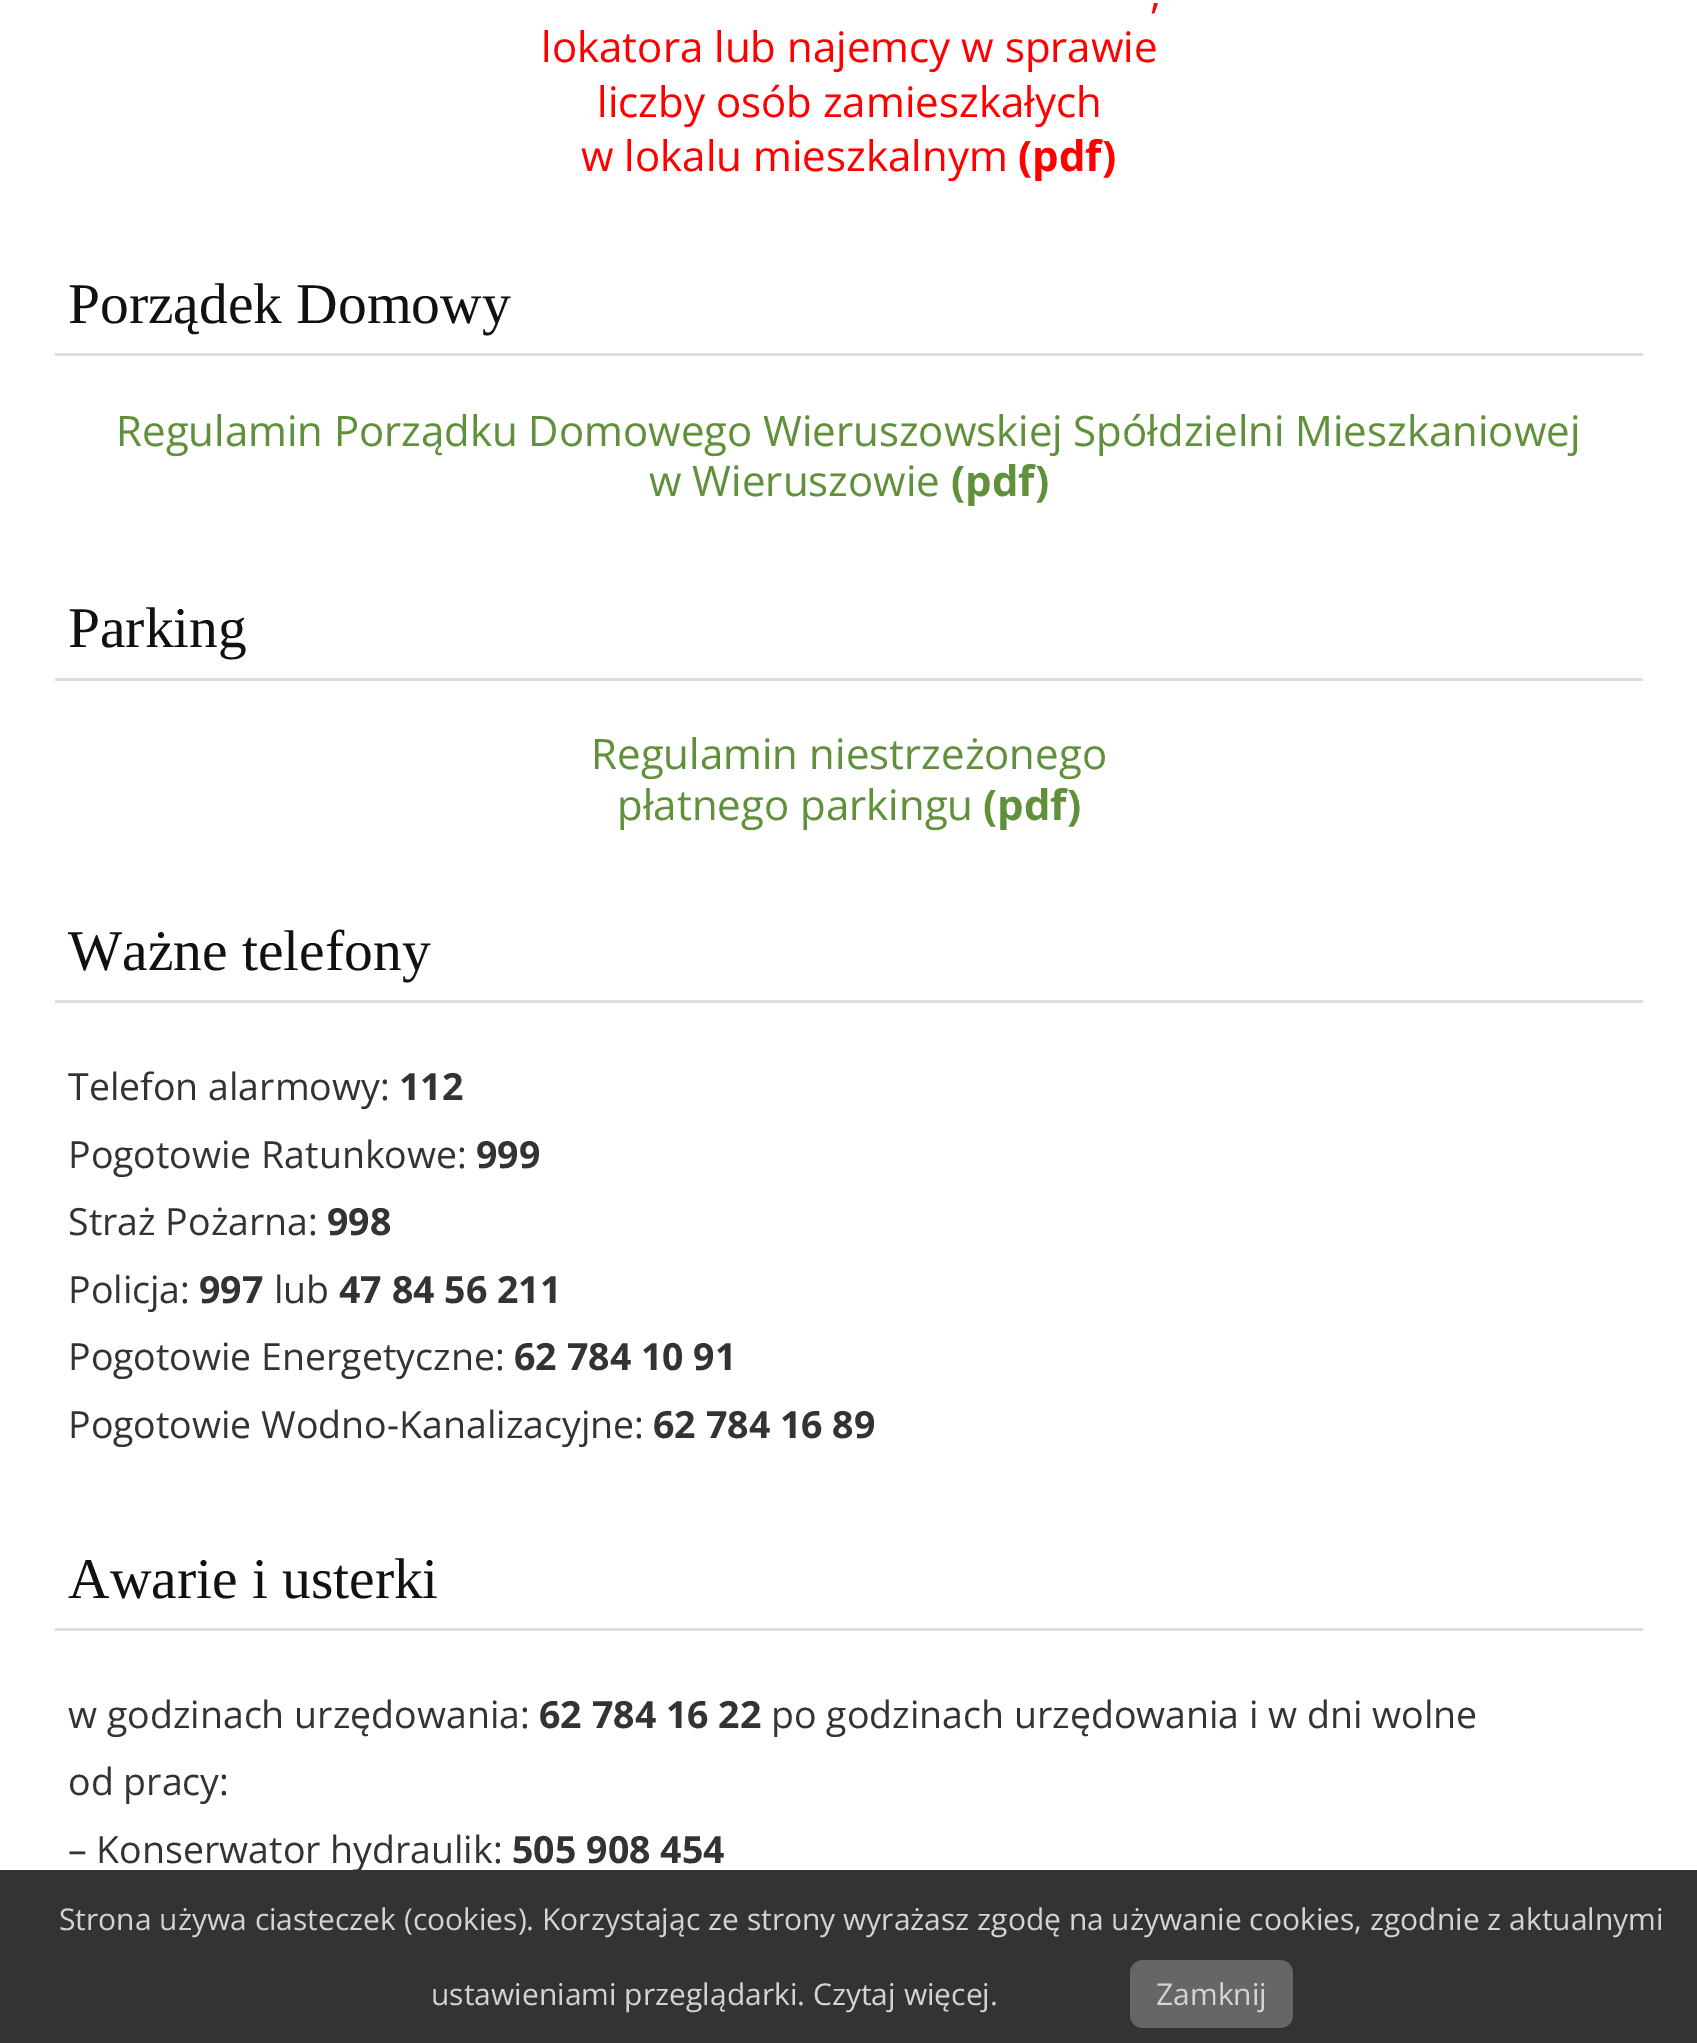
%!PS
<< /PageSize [1697 2043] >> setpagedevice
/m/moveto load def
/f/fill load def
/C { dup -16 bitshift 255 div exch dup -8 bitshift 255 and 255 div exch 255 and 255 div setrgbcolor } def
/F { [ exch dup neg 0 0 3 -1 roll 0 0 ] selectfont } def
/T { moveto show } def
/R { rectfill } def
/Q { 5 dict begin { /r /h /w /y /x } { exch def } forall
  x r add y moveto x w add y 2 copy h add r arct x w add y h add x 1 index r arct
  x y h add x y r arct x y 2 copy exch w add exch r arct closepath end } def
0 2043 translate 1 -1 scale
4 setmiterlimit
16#FFFFFF C
0 0 1697 2043 R
/OpenSans-Regular 42 F
16#FF0000 C
(,) 1150 8 T
(lokatora lub najemcy w sprawie) 541 62 T
(liczby osób zamieszkałych) 597 117 T
(w lokalu mieszkalnym) 581 171 T
/OpenSans-Bold 42 F
(\(pdf\)) 1018 171 T
16#DDDDDD C
55 353 1588 3 R
/LiberationSerif-Regular 57.5 F
16#111111 C
(Porządek Domowy) 68 323 T
/OpenSans-Regular 42 F
16#61903B C
116 446 m -.5 0 32 (Regulamin Porządku Domowego Wieruszowskiej Spółdzielni Mieszkaniowej) widthshow
(w Wieruszowie) 649 496 T
/OpenSans-Bold 42 F
(\(pdf\)) 951 496 T
16#DDDDDD C
55 678 1588 3 R
/LiberationSerif-Regular 57.5 F
16#111111 C
(Parking) 68 647 T
/OpenSans-Regular 42 F
16#61903B C
(Regulamin niestrzeżonego) 591 769 T
(płatnego parkingu) 617 820 T
/OpenSans-Bold 42 F
(\(pdf\)) 983 820 T
16#DDDDDD C
55 1000 1588 3 R
/LiberationSerif-Regular 57.5 F
16#111111 C
(Ważne telefony) 68 970 T
/OpenSans-Regular 37.5 F
16#333333 C
(Telefon alarmowy:) 68 1100 T
/OpenSans-Bold 37.5 F
(112) 399 1100 T
/OpenSans-Regular 37.5 F
(Pogotowie Ratunkowe:) 68 1168 T
/OpenSans-Bold 37.5 F
(999) 476 1168 T
/OpenSans-Regular 37.5 F
(Straż Pożarna:) 68 1235 T
/OpenSans-Bold 37.5 F
(998) 327 1235 T
/OpenSans-Regular 37.5 F
(Policja:) 68 1303 T
/OpenSans-Bold 37.5 F
(997) 199 1303 T
/OpenSans-Regular 37.5 F
(lub) 274 1303 T
/OpenSans-Bold 37.5 F
(47 84 56 211) 339 1303 T
/OpenSans-Regular 37.5 F
(Pogotowie Energetyczne:) 68 1370 T
/OpenSans-Bold 37.5 F
(62 784 10 91) 514 1370 T
/OpenSans-Regular 37.5 F
(Pogotowie Wodno-Kanalizacyjne:) 68 1438 T
/OpenSans-Bold 37.5 F
(62 784 16 89) 653 1438 T
16#DDDDDD C
55 1628 1588 3 R
/LiberationSerif-Regular 57.5 F
16#111111 C
(Awarie i usterki) 68 1598 T
/OpenSans-Regular 37.5 F
16#333333 C
(w godzinach urzędowania:) 68 1728 T
/OpenSans-Bold 37.5 F
(62 784 16 22) 539 1728 T
/OpenSans-Regular 37.5 F
(po godzinach urzędowania i w dni wolne) 771 1728 T
(od pracy:) 68 1795 T
(– Konserwator hydraulik:) 68 1863 T
/OpenSans-Bold 37.5 F
(505 908 454) 512 1863 T
0 1870 1697 173 R
/OpenSans-Regular 30 F
16#D4D4D4 C
(Strona używa ciasteczek \(cookies\). Korzystając ze strony wyrażasz zgodę na używanie cookies, zgodnie z aktualnymi) 59 1930 T
(ustawieniami przeglądarki. Czytaj więcej.) 431 2005 T
16#666666 C
1130 1960 163 68 13 Q f
16#D4D4D4 C
(Zamknij) 1156 2005 T
showpage
